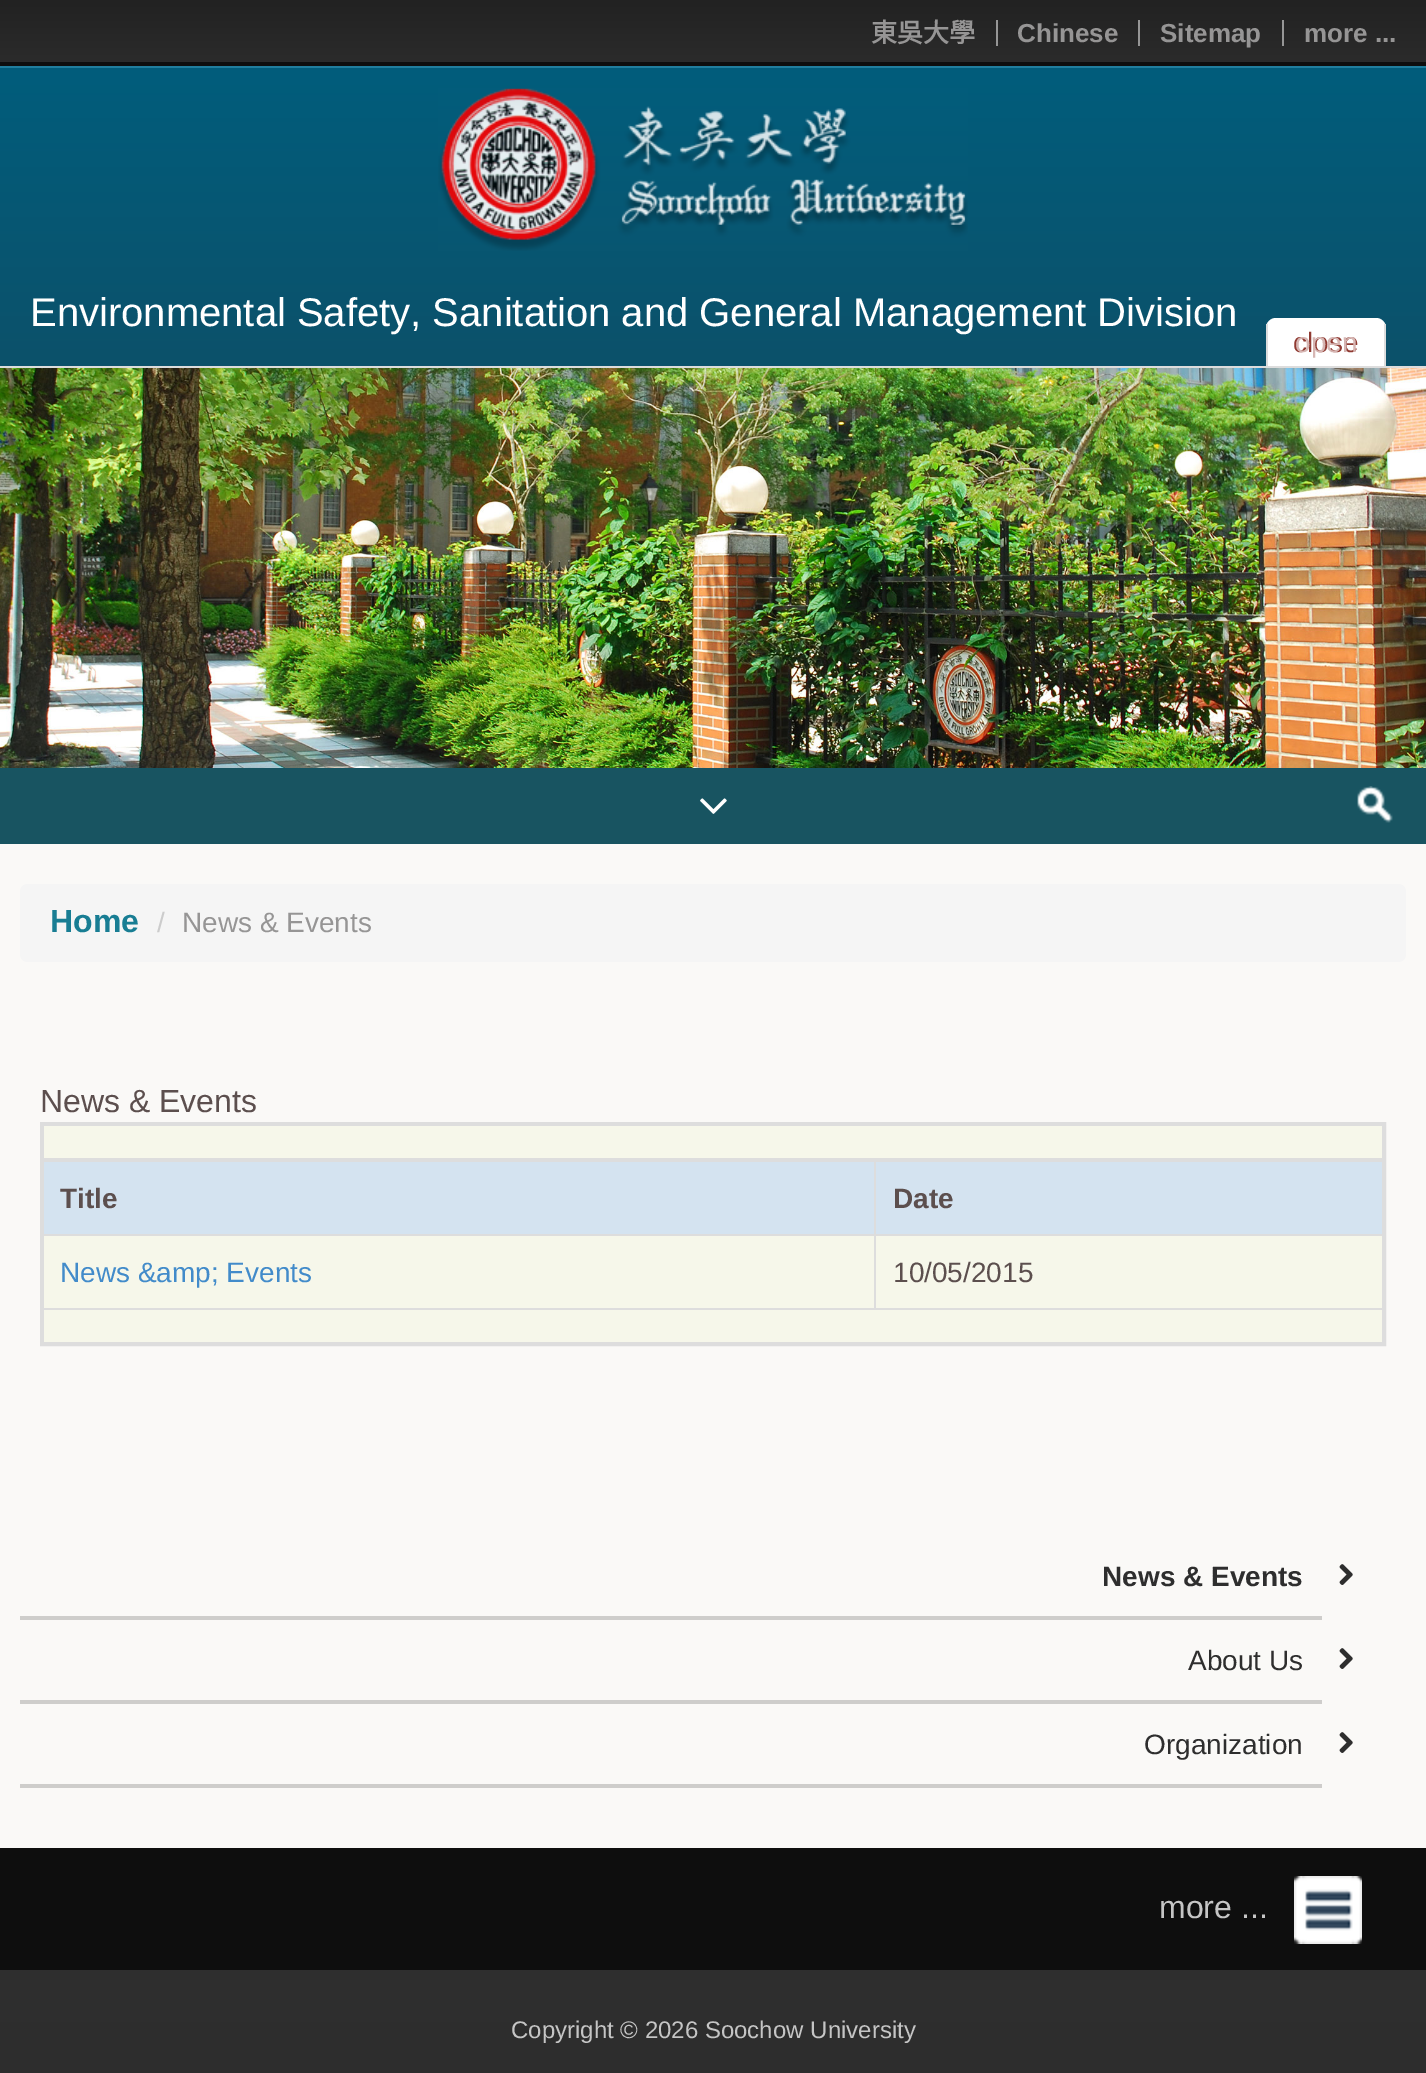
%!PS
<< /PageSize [1426 2073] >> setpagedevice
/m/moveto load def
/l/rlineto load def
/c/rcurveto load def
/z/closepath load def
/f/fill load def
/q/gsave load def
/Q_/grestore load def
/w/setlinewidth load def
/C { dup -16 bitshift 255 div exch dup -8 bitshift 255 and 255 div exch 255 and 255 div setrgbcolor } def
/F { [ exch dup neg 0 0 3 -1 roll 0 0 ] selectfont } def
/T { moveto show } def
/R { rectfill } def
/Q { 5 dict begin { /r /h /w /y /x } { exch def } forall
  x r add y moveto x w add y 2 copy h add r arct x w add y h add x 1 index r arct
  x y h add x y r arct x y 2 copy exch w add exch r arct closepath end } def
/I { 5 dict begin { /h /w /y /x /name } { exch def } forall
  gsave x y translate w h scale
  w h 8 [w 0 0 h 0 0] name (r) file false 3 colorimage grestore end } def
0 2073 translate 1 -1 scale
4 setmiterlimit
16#FAF9F7 C
0 0 1426 2073 R
q 0 0 m 1426 0 l 0 62 l -1426 0 l z clip newpath
<< /ShadingType 2 /ColorSpace /DeviceRGB /Coords [713 0 713 62] /Extend [true true] /Function << /FunctionType 2 /Domain [0 1] /C0 [.133 .133 .133] /C1 [.169 .169 .169] /N 1 >> >> shfill Q_
16#0E0E0E C
0 62 1426 4 R
/NotoSansCJKTC-Bold 26 F
16#969595 C
(東吳大學) 871 42 T
16#969696 C
996 20 2 26 R
/LiberationSans-Bold 26 F
16#969595 C
(Chinese) 1017 42 T
16#969696 C
1138 20 2 26 R
16#969595 C
(Sitemap) 1160 42 T
16#969696 C
1282 20 2 26 R
16#969595 C
(more ...) 1304 42 T
q 0 68 m 1426 0 l 0 298 l -1426 0 l z clip newpath
<< /ShadingType 2 /ColorSpace /DeviceRGB /Coords [713 68 713 368] /Extend [true true] /Function << /FunctionType 2 /Domain [0 1] /C0 [.004 .365 .486] /C1 [.047 .318 .416] /N 1 >> >> shfill Q_
16#217E9E C
0 66 1426 2 R
(1.rgb) 438 88 530 163 I
/LiberationSans-Regular 40 F
16#FFFFFF C
(Environmental Safety, Sanitation and General Management Division) 30 326 T
16#DDDDDD C
0 366 1426 2 R
16#FFFFFF C
1276 318 m 100 0 l 5.5 0 10 4.5 10 10 c 0 40 l -120 0 l 0 -40 l 0 -5.5 4.5 -10 10 -10 c z f
16#DDDDDD C
1384 324 2 44 R
1266 366 120 2 R
1266 324 2 44 R
/LiberationSans-Regular 28 F
16#8F3931 C
(close) 1293 352 T
16#D6B6B3 C
(open) 1295 352 T
(2.rgb) 0 368 1426 400 I
16#185461 C
0 768 1426 76 R
(3.rgb) 700 798 27 16 I
(4.rgb) 1357 786 36 37 I
16#F5F5F5 C
20 884 1386 78 8 Q f
/LiberationSans-Bold 32 F
16#187D93 C
(Home) 50 932 T
/LiberationSans-Regular 28 F
16#CCCCCC C
(/) 157 932 T
16#969595 C
(News & Events) 182 932 T
/LiberationSans-Regular 32 F
16#5C4F4E C
(News & Events) 40 1112 T
16#DDDDDD C
2 w
41 1123 1344 222 rectstroke
42 1124 1342 2 R
1382 1124 2 220 R
42 1342 1342 2 R
42 1124 2 220 R
16#F6F7EA C
44 1126 1338 32 R
16#DDDDDD C
874 1234 510 2 R
16#F6F7EA C
44 1236 1338 72 R
16#DDDDDD C
42 1308 1342 2 R
874 1234 2 76 R
42 1234 834 2 R
874 1158 2 78 R
42 1158 1342 4 R
16#D4E3F0 C
44 1162 830 72 R
/LiberationSans-Bold 28 F
16#5C4F4E C
(Title) 60 1208 T
16#D4E3F0 C
876 1162 506 72 R
16#5C4F4E C
(Date) 893 1208 T
/LiberationSans-Regular 28 F
16#428BCA C
(News &amp; Events) 60 1282 T
16#5C4F4E C
(10/05/2015) 893 1282 T
16#F6F7EA C
44 1310 1338 32 R
16#CECDCB C
20 1616 1302 4 R
/LiberationSans-Bold 28 F
16#2E2E2E C
(News & Events) 1102 1586 T
(5.rgb) 1339 1564 14 21 I
16#CECDCB C
20 1700 1302 4 R
/LiberationSans-Regular 28 F
16#2E2E2E C
(About Us) 1188 1670 T
(5.rgb) 1339 1648 14 21 I
16#CECDCB C
20 1784 1302 4 R
16#2E2E2E C
(Organization) 1144 1754 T
(5.rgb) 1339 1732 14 21 I
q 0 1970 m 1426 0 l 0 103 l -1426 0 l z clip newpath
<< /ShadingType 2 /ColorSpace /DeviceRGB /Coords [713 1848 713 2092] /Extend [true true] /Function << /FunctionType 2 /Domain [0 1] /C0 [.196 .196 .196] /C1 [.173 .173 .173] /N 1 >> >> shfill Q_
16#0E0E0E C
0 1848 1426 122 R
/LiberationSans-Regular 32 F
16#C5C5C5 C
(more ...) 1159 1918 T
(6.rgb) 1294 1876 68 68 I
/LiberationSans-Regular 24 F
(Copyright © 2026 Soochow University) 511 2038 T
showpage
